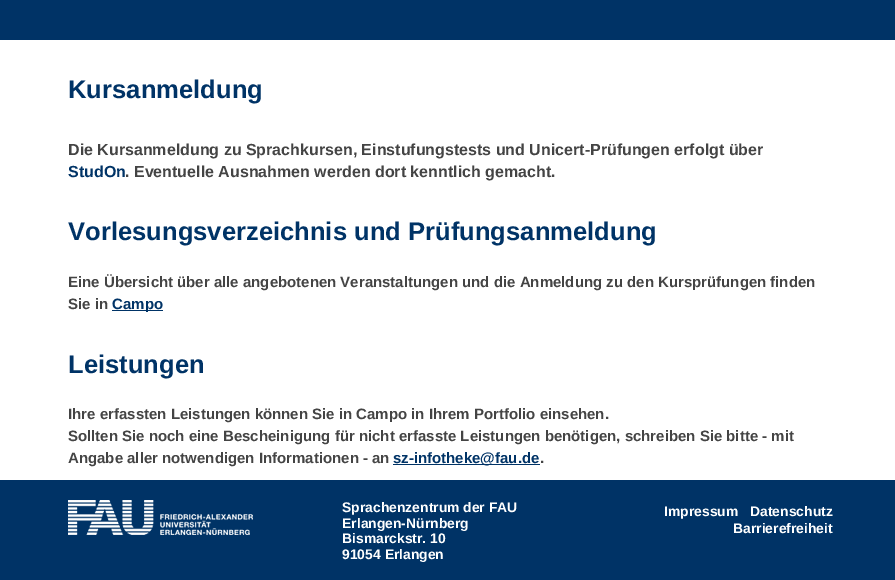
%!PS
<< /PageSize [895 580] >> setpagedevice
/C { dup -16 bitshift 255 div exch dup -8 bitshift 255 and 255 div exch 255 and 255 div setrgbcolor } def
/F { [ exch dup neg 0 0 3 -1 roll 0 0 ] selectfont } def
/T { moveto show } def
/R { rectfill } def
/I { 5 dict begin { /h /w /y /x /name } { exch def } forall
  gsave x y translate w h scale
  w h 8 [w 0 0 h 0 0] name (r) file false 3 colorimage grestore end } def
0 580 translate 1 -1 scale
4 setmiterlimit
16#FFFFFF C
0 0 895 580 R
16#003366 C
0 0 895 40 R
/LiberationSans-Bold 25.6 F
(Kursanmeldung) 68 98 T
/LiberationSans-Bold 16 F
16#444444 C
(Die Kursanmeldung zu Sprachkursen, Einstufungstests und Unicert-Prüfungen erfolgt über) 68 155 T
16#003366 C
(StudOn) 68 177 T
16#444444 C
(. Eventuelle Ausnahmen werden dort kenntlich gemacht.) 125 177 T
/LiberationSans-Bold 25.6 F
16#003366 C
(Vorlesungsverzeichnis und Prüfungsanmeldung) 68 240 T
/LiberationSans-Bold 15 F
16#444444 C
(Eine Übersicht über alle angebotenen Veranstaltungen und die Anmeldung zu den Kursprüfungen finden) 68 287 T
(Sie in) 68 309 T
16#003366 C
112 310 51 1 R
(Campo) 112 309 T
/LiberationSans-Bold 25.6 F
(Leistungen) 68 373 T
/LiberationSans-Bold 15 F
16#444444 C
(Ihre erfassten Leistungen können Sie in Campo in Ihrem Portfolio einsehen.) 68 419 T
(Sollten Sie noch eine Bescheinigung für nicht erfasste Leistungen benötigen, schreiben Sie bitte - mit) 68 441 T
(Angabe aller notwendigen Informationen - an) 68 463 T
16#003366 C
393 464 147 1 R
(sz-infotheke@fau.de) 393 463 T
16#444444 C
(.) 540 463 T
16#003366 C
0 480 895 100 R
(1.rgb) 68 500 185 35 I
/LiberationSans-Bold 13.9 F
16#FFFFFF C
(Sprachenzentrum der FAU) 342 512 T
(Erlangen-Nürnberg) 342 528 T
(Bismarckstr. 10) 342 543 T
(91054 Erlangen) 342 559 T
(Impressum) 664 516 T
(Datenschutz) 750 516 T
(Barrierefreiheit) 733 533 T
showpage
